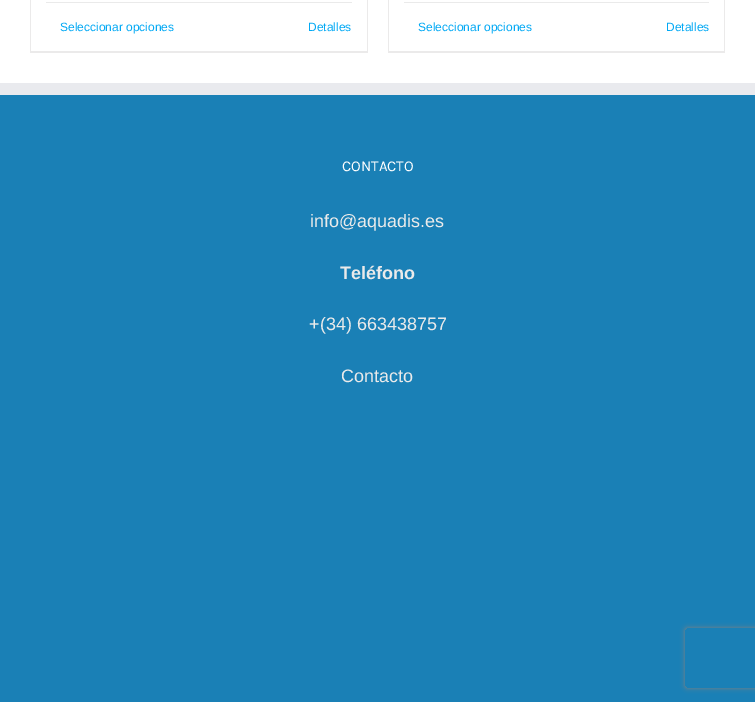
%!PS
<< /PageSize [755 702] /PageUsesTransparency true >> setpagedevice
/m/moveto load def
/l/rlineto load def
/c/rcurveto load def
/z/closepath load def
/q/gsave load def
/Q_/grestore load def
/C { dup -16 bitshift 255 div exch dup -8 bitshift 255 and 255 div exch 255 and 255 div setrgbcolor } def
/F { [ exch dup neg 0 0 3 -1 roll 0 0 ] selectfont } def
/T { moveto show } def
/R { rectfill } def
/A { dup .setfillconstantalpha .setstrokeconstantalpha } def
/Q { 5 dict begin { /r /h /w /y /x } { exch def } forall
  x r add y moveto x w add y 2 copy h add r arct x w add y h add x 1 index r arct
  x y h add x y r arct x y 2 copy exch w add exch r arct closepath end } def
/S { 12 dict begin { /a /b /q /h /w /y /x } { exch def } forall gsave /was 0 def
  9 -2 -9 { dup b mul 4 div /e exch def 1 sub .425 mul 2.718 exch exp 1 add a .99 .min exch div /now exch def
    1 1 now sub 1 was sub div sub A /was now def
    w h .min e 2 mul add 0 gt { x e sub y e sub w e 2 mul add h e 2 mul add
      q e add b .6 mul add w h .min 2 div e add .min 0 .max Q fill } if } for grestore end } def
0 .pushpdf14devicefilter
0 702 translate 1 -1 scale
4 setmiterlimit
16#FFFFFF C
0 0 755 702 R
16#EBEAEA C
367 0 1 53 R
30 51 338 2 R
30 0 1 53 R
16#EAEAEA C
46 2 306 1 R
/LiberationSans-Regular 12 F
16#03A9F4 C
(Seleccionar opciones) 60 31 T
(Detalles) 308 31 T
16#EBEAEA C
724 0 1 53 R
388 51 337 2 R
388 0 1 53 R
16#EAEAEA C
404 2 305 1 R
16#03A9F4 C
(Seleccionar opciones) 418 31 T
(Detalles) 666 31 T
16#1A80B6 C
0 95 755 607 R
16#E9EAEE C
0 83 755 12 R
/Karla-Regular 15 F
16#FFFFFF C
(CONTACTO) 342 171 T
/LiberationSans-Regular 18 F
16#EAEAEA C
(info@aquadis.es) 310 227 T
/LiberationSans-Bold 18 F
(Teléfono) 340 279 T
/LiberationSans-Regular 18 F
(+\(34\) 663438757) 309 330 T
(Contacto) 341 382 T
q
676 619 m 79 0 l 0 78 l -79 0 l z 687 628 m 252 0 l 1 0 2 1 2 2 c 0 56 l 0 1 -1 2 -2 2 c -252 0 l -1 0 -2 -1 -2 -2 c 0 -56 l 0 -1 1 -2 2 -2 c z eoclip newpath
16#808080 C
685 628 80 60 2 2.5 1 S
Q_
.poppdf14devicefilter showpage
